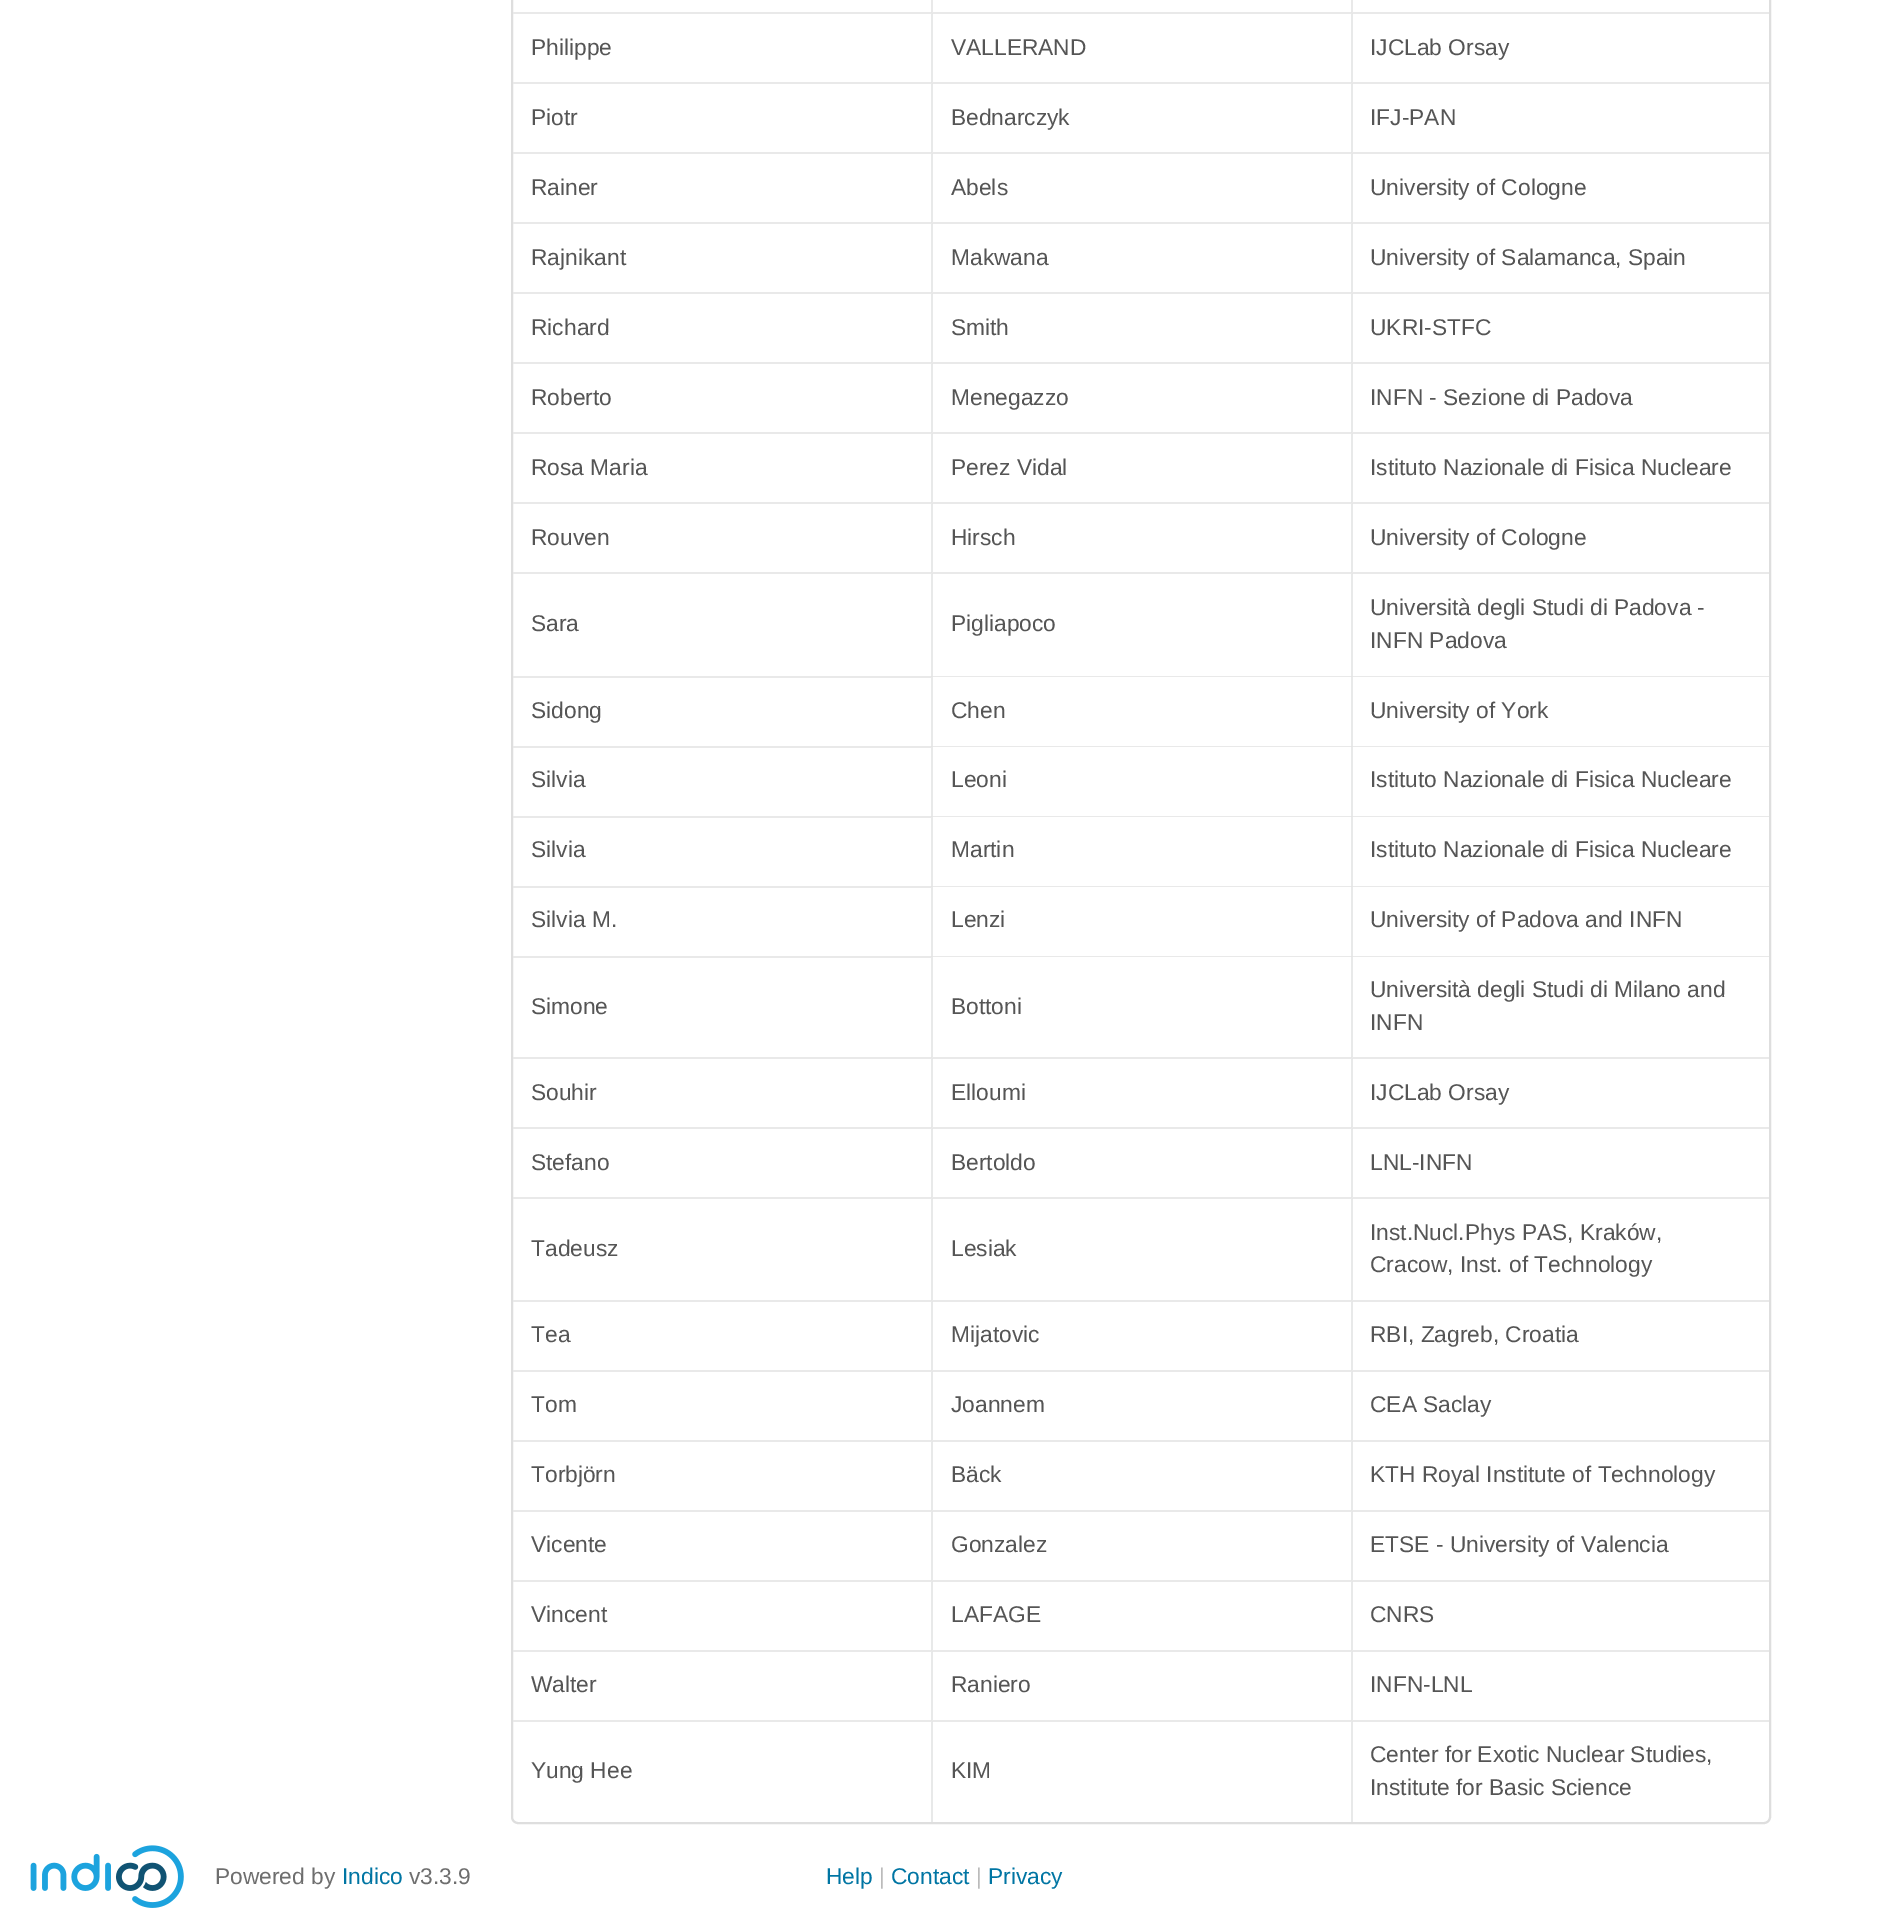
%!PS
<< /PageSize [1879 1928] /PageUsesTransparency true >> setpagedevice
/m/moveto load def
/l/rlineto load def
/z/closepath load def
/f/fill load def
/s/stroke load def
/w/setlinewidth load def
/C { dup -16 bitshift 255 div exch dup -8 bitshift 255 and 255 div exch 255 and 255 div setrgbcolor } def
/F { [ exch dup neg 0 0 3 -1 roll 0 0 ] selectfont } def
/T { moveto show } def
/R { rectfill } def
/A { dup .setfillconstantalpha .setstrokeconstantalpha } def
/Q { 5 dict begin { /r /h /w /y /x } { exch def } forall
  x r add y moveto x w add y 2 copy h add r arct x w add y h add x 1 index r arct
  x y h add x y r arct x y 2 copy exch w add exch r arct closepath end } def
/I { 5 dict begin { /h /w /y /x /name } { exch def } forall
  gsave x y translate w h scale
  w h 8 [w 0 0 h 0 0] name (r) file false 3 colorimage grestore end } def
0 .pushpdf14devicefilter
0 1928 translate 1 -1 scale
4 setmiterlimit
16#FFFFFF C
0 0 1879 1928 R
16#DEDEDE C
2 w
512 -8 1258 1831 6 Q s
16#E9E9E9 C
931 12 m 0 -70 l 2 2 l 0 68 l z f
1351 12 m 0 -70 l 2 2 l 0 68 l z f
513 12 418 2 R
/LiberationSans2-Regular 22.75 F
16#555555 C
(Philippe) 531 55 T
16#E9E9E9 C
931 12 m 420 0 l 0 2 l -418 0 l z f
0.1 A
16#222426 C
931 82 m 0 -70 l 2 2 l 0 68 l z f
1 A
16#555555 C
(VALLERAND) 951 55 T
16#E9E9E9 C
1351 12 m 418 0 l 0 2 l -416 0 l z f
0.1 A
16#222426 C
1351 82 m 0 -70 l 2 2 l 0 68 l z f
1 A
16#555555 C
(IJCLab Orsay) 1370 55 T
16#E9E9E9 C
513 82 418 2 R
16#555555 C
(Piotr) 531 125 T
16#E9E9E9 C
931 82 m 420 0 l 0 2 l -418 0 l z f
0.1 A
16#222426 C
931 152 m 0 -70 l 2 2 l 0 68 l z f
1 A
16#555555 C
(Bednarczyk) 951 125 T
16#E9E9E9 C
1351 82 m 418 0 l 0 2 l -416 0 l z f
0.1 A
16#222426 C
1351 152 m 0 -70 l 2 2 l 0 68 l z f
1 A
16#555555 C
(IFJ-PAN) 1370 125 T
16#E9E9E9 C
513 152 418 2 R
16#555555 C
(Rainer) 531 195 T
16#E9E9E9 C
931 152 m 420 0 l 0 2 l -418 0 l z f
0.1 A
16#222426 C
931 222 m 0 -70 l 2 2 l 0 68 l z f
1 A
16#555555 C
(Abels) 951 195 T
16#E9E9E9 C
1351 152 m 418 0 l 0 2 l -416 0 l z f
0.1 A
16#222426 C
1351 222 m 0 -70 l 2 2 l 0 68 l z f
1 A
16#555555 C
(University of Cologne) 1370 195 T
16#E9E9E9 C
513 222 418 2 R
16#555555 C
(Rajnikant) 531 265 T
16#E9E9E9 C
931 222 m 420 0 l 0 2 l -418 0 l z f
0.1 A
16#222426 C
931 292 m 0 -70 l 2 2 l 0 68 l z f
1 A
16#555555 C
(Makwana) 951 265 T
16#E9E9E9 C
1351 222 m 418 0 l 0 2 l -416 0 l z f
0.1 A
16#222426 C
1351 292 m 0 -70 l 2 2 l 0 68 l z f
1 A
16#555555 C
(University of Salamanca, Spain) 1370 265 T
16#E9E9E9 C
513 292 418 2 R
16#555555 C
(Richard) 531 335 T
16#E9E9E9 C
931 292 m 420 0 l 0 2 l -418 0 l z f
0.1 A
16#222426 C
931 362 m 0 -70 l 2 2 l 0 68 l z f
1 A
16#555555 C
(Smith) 951 335 T
16#E9E9E9 C
1351 292 m 418 0 l 0 2 l -416 0 l z f
0.1 A
16#222426 C
1351 362 m 0 -70 l 2 2 l 0 68 l z f
1 A
16#555555 C
(UKRI-STFC) 1370 335 T
16#E9E9E9 C
513 362 418 2 R
16#555555 C
(Roberto) 531 405 T
16#E9E9E9 C
931 362 m 420 0 l 0 2 l -418 0 l z f
0.1 A
16#222426 C
931 432 m 0 -70 l 2 2 l 0 68 l z f
1 A
16#555555 C
(Menegazzo) 951 405 T
16#E9E9E9 C
1351 362 m 418 0 l 0 2 l -416 0 l z f
0.1 A
16#222426 C
1351 432 m 0 -70 l 2 2 l 0 68 l z f
1 A
16#555555 C
(INFN - Sezione di Padova) 1370 405 T
16#E9E9E9 C
513 432 418 2 R
16#555555 C
(Rosa Maria) 531 475 T
16#E9E9E9 C
931 432 m 420 0 l 0 2 l -418 0 l z f
0.1 A
16#222426 C
931 502 m 0 -70 l 2 2 l 0 68 l z f
1 A
16#555555 C
(Perez Vidal) 951 475 T
16#E9E9E9 C
1351 432 m 418 0 l 0 2 l -416 0 l z f
0.1 A
16#222426 C
1351 502 m 0 -70 l 2 2 l 0 68 l z f
1 A
16#555555 C
(Istituto Nazionale di Fisica Nucleare) 1370 475 T
16#E9E9E9 C
513 502 418 2 R
16#555555 C
(Rouven) 531 545 T
16#E9E9E9 C
931 502 m 420 0 l 0 2 l -418 0 l z f
0.1 A
16#222426 C
931 572 m 0 -70 l 2 2 l 0 68 l z f
1 A
16#555555 C
(Hirsch) 951 545 T
16#E9E9E9 C
1351 502 m 418 0 l 0 2 l -416 0 l z f
0.1 A
16#222426 C
1351 572 m 0 -70 l 2 2 l 0 68 l z f
1 A
16#555555 C
(University of Cologne) 1370 545 T
16#E9E9E9 C
513 572 418 2 R
16#555555 C
(Sara) 531 631 T
16#E9E9E9 C
931 572 m 420 0 l 0 2 l -418 0 l z f
0.1 A
16#222426 C
931 676 m 0 -104 l 2 2 l 0 102 l z f
1 A
16#555555 C
(Pigliapoco) 951 631 T
16#E9E9E9 C
1351 572 m 418 0 l 0 2 l -416 0 l z f
0.1 A
16#222426 C
1351 676 m 0 -104 l 2 2 l 0 102 l z f
1 A
16#555555 C
(Università degli Studi di Padova -) 1370 615 T
(INFN Padova) 1370 648 T
16#E9E9E9 C
513 676 418 2 R
16#555555 C
(Sidong) 531 718 T
16#E9E9E9 C
931 676 m 420 0 l 0 1 l -418 0 l z f
0.1 A
16#222426 C
931 746 m 0 -70 l 2 1 l 0 69 l z f
1 A
16#555555 C
(Chen) 951 718 T
16#E9E9E9 C
1351 676 m 418 0 l 0 1 l -416 0 l z f
0.1 A
16#222426 C
1351 746 m 0 -70 l 2 1 l 0 69 l z f
1 A
16#555555 C
(University of York) 1370 718 T
16#E9E9E9 C
513 746 418 2 R
16#555555 C
(Silvia) 531 787 T
16#E9E9E9 C
931 746 m 420 0 l 0 1 l -418 0 l z f
0.1 A
16#222426 C
931 816 m 0 -70 l 2 1 l 0 69 l z f
1 A
16#555555 C
(Leoni) 951 787 T
16#E9E9E9 C
1351 746 m 418 0 l 0 1 l -416 0 l z f
0.1 A
16#222426 C
1351 816 m 0 -70 l 2 1 l 0 69 l z f
1 A
16#555555 C
(Istituto Nazionale di Fisica Nucleare) 1370 787 T
16#E9E9E9 C
513 816 418 2 R
16#555555 C
(Silvia) 531 857 T
16#E9E9E9 C
931 816 m 420 0 l 0 1 l -418 0 l z f
0.1 A
16#222426 C
931 886 m 0 -70 l 2 1 l 0 69 l z f
1 A
16#555555 C
(Martin) 951 857 T
16#E9E9E9 C
1351 816 m 418 0 l 0 1 l -416 0 l z f
0.1 A
16#222426 C
1351 886 m 0 -70 l 2 1 l 0 69 l z f
1 A
16#555555 C
(Istituto Nazionale di Fisica Nucleare) 1370 857 T
16#E9E9E9 C
513 886 418 2 R
16#555555 C
(Silvia M.) 531 927 T
16#E9E9E9 C
931 886 m 420 0 l 0 1 l -418 0 l z f
0.1 A
16#222426 C
931 956 m 0 -70 l 2 1 l 0 69 l z f
1 A
16#555555 C
(Lenzi) 951 927 T
16#E9E9E9 C
1351 886 m 418 0 l 0 1 l -416 0 l z f
0.1 A
16#222426 C
1351 956 m 0 -70 l 2 1 l 0 69 l z f
1 A
16#555555 C
(University of Padova and INFN) 1370 927 T
16#E9E9E9 C
513 956 418 2 R
16#555555 C
(Simone) 531 1014 T
16#E9E9E9 C
931 956 m 420 0 l 0 1 l -418 0 l z f
0.1 A
16#222426 C
931 1057 m 0 -101 l 2 1 l 0 100 l z f
1 A
16#555555 C
(Bottoni) 951 1014 T
16#E9E9E9 C
1351 956 m 418 0 l 0 1 l -416 0 l z f
0.1 A
16#222426 C
1351 1057 m 0 -101 l 2 1 l 0 100 l z f
1 A
16#555555 C
(Università degli Studi di Milano and) 1370 997 T
(INFN) 1370 1030 T
16#E9E9E9 C
513 1057 418 2 R
16#555555 C
(Souhir) 531 1100 T
16#E9E9E9 C
931 1057 m 420 0 l 0 2 l -418 0 l z f
0.1 A
16#222426 C
931 1127 m 0 -70 l 2 2 l 0 68 l z f
1 A
16#555555 C
(Elloumi) 951 1100 T
16#E9E9E9 C
1351 1057 m 418 0 l 0 2 l -416 0 l z f
0.1 A
16#222426 C
1351 1127 m 0 -70 l 2 2 l 0 68 l z f
1 A
16#555555 C
(IJCLab Orsay) 1370 1100 T
16#E9E9E9 C
513 1127 418 2 R
16#555555 C
(Stefano) 531 1170 T
16#E9E9E9 C
931 1127 m 420 0 l 0 2 l -418 0 l z f
0.1 A
16#222426 C
931 1197 m 0 -70 l 2 2 l 0 68 l z f
1 A
16#555555 C
(Bertoldo) 951 1170 T
16#E9E9E9 C
1351 1127 m 418 0 l 0 2 l -416 0 l z f
0.1 A
16#222426 C
1351 1197 m 0 -70 l 2 2 l 0 68 l z f
1 A
16#555555 C
(LNL-INFN) 1370 1170 T
16#E9E9E9 C
513 1197 418 2 R
16#555555 C
(Tadeusz) 531 1256 T
16#E9E9E9 C
931 1197 m 420 0 l 0 2 l -418 0 l z f
0.1 A
16#222426 C
931 1300 m 0 -103 l 2 2 l 0 101 l z f
1 A
16#555555 C
(Lesiak) 951 1256 T
16#E9E9E9 C
1351 1197 m 418 0 l 0 2 l -416 0 l z f
0.1 A
16#222426 C
1351 1300 m 0 -103 l 2 2 l 0 101 l z f
1 A
16#555555 C
(Inst.Nucl.Phys PAS, Kraków,) 1370 1240 T
(Cracow, Inst. of Technology) 1370 1272 T
16#E9E9E9 C
513 1300 418 2 R
16#555555 C
(Tea) 531 1342 T
16#E9E9E9 C
931 1300 m 420 0 l 0 2 l -418 0 l z f
0.1 A
16#222426 C
931 1370 m 0 -70 l 2 2 l 0 68 l z f
1 A
16#555555 C
(Mijatovic) 951 1342 T
16#E9E9E9 C
1351 1300 m 418 0 l 0 2 l -416 0 l z f
0.1 A
16#222426 C
1351 1370 m 0 -70 l 2 2 l 0 68 l z f
1 A
16#555555 C
(RBI, Zagreb, Croatia) 1370 1342 T
16#E9E9E9 C
513 1370 418 2 R
16#555555 C
(Tom) 531 1412 T
16#E9E9E9 C
931 1370 m 420 0 l 0 2 l -418 0 l z f
0.1 A
16#222426 C
931 1440 m 0 -70 l 2 2 l 0 68 l z f
1 A
16#555555 C
(Joannem) 951 1412 T
16#E9E9E9 C
1351 1370 m 418 0 l 0 2 l -416 0 l z f
0.1 A
16#222426 C
1351 1440 m 0 -70 l 2 2 l 0 68 l z f
1 A
16#555555 C
(CEA Saclay) 1370 1412 T
16#E9E9E9 C
513 1440 418 2 R
16#555555 C
(Torbjörn) 531 1482 T
16#E9E9E9 C
931 1440 m 420 0 l 0 2 l -418 0 l z f
0.1 A
16#222426 C
931 1510 m 0 -70 l 2 2 l 0 68 l z f
1 A
16#555555 C
(Bäck) 951 1482 T
16#E9E9E9 C
1351 1440 m 418 0 l 0 2 l -416 0 l z f
0.1 A
16#222426 C
1351 1510 m 0 -70 l 2 2 l 0 68 l z f
1 A
16#555555 C
(KTH Royal Institute of Technology) 1370 1482 T
16#E9E9E9 C
513 1510 418 2 R
16#555555 C
(Vicente) 531 1552 T
16#E9E9E9 C
931 1510 m 420 0 l 0 2 l -418 0 l z f
0.1 A
16#222426 C
931 1580 m 0 -70 l 2 2 l 0 68 l z f
1 A
16#555555 C
(Gonzalez) 951 1552 T
16#E9E9E9 C
1351 1510 m 418 0 l 0 2 l -416 0 l z f
0.1 A
16#222426 C
1351 1580 m 0 -70 l 2 2 l 0 68 l z f
1 A
16#555555 C
(ETSE - University of Valencia) 1370 1552 T
16#E9E9E9 C
513 1580 418 2 R
16#555555 C
(Vincent) 531 1622 T
16#E9E9E9 C
931 1580 m 420 0 l 0 2 l -418 0 l z f
0.1 A
16#222426 C
931 1650 m 0 -70 l 2 2 l 0 68 l z f
1 A
16#555555 C
(LAFAGE) 951 1622 T
16#E9E9E9 C
1351 1580 m 418 0 l 0 2 l -416 0 l z f
0.1 A
16#222426 C
1351 1650 m 0 -70 l 2 2 l 0 68 l z f
1 A
16#555555 C
(CNRS) 1370 1622 T
16#E9E9E9 C
513 1650 418 2 R
16#555555 C
(Walter) 531 1692 T
16#E9E9E9 C
931 1650 m 420 0 l 0 2 l -418 0 l z f
0.1 A
16#222426 C
931 1720 m 0 -70 l 2 2 l 0 68 l z f
1 A
16#555555 C
(Raniero) 951 1692 T
16#E9E9E9 C
1351 1650 m 418 0 l 0 2 l -416 0 l z f
0.1 A
16#222426 C
1351 1720 m 0 -70 l 2 2 l 0 68 l z f
1 A
16#555555 C
(INFN-LNL) 1370 1692 T
16#E9E9E9 C
513 1720 418 2 R
16#555555 C
(Yung Hee) 531 1778 T
16#E9E9E9 C
931 1720 m 420 0 l 0 2 l -418 0 l z f
0.1 A
16#222426 C
931 1822 m 0 -102 l 2 2 l 0 100 l z f
1 A
16#555555 C
(KIM) 951 1778 T
16#E9E9E9 C
1351 1720 m 418 0 l 0 2 l -416 0 l z f
0.1 A
16#222426 C
1351 1822 m 0 -102 l 2 2 l 0 100 l z f
1 A
16#555555 C
(Center for Exotic Nuclear Studies,) 1370 1762 T
(Institute for Basic Science) 1370 1795 T
(1.rgb) 30 1845 154 63 I
/LiberationSans-Regular 22.75 F
16#6E6E6E C
(Powered by) 215 1884 T
16#0075A3 C
(Indico) 342 1884 T
16#6E6E6E C
(v3.3.9) 409 1884 T
16#0075A3 C
(Help) 826 1884 T
16#BBBBBB C
(|) 879 1884 T
16#0075A3 C
(Contact) 891 1884 T
16#BBBBBB C
(|) 976 1884 T
16#0075A3 C
(Privacy) 988 1884 T
.poppdf14devicefilter showpage
